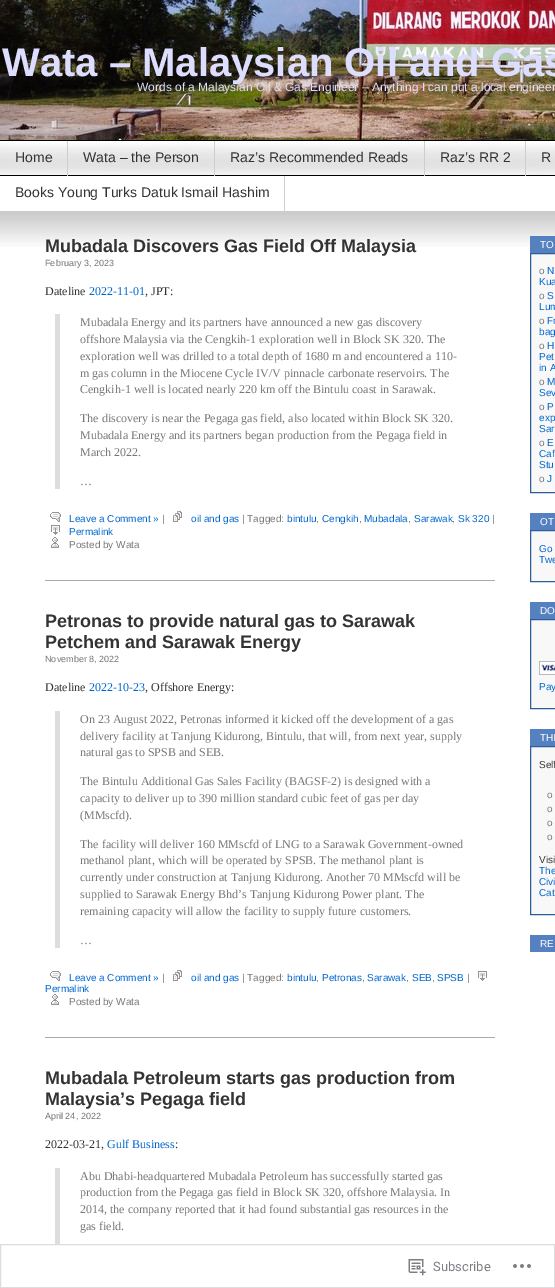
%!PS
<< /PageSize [555 1288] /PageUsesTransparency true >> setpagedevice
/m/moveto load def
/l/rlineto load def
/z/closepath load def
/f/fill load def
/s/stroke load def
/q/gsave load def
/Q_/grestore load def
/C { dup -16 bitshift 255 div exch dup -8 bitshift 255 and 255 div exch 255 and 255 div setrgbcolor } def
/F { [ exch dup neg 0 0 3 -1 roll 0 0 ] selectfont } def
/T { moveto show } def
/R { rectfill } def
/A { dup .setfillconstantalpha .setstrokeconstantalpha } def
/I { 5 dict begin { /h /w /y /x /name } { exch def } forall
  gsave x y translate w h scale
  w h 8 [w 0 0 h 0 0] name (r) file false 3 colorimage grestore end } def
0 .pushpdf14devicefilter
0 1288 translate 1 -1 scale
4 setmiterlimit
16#FFFFFF C
0 0 555 1288 R
16#000000 C
0 140 555 1 R
(1.rgb) 0 0 555 140 I
/LiberationSans-Bold 40 F
16#DDDDFF C
(Wata – Malaysian Oil and Gas) 2 76 T
/LiberationSans-Regular 12 F
(Words of a Malaysian Oil & Gas Engineer – Anything I can put a local engineer) 137 91 T
(2.rgb) 0 143 555 32 I
16#000000 C
0 175 555 1 R
16#CECECE C
67 141 1 35 R
/LiberationSans-Regular 14 F
16#333333 C
(Home) 15 162 T
16#CECECE C
214 141 1 35 R
16#333333 C
(Wata – the Person) 83 162 T
16#CECECE C
424 141 1 35 R
16#333333 C
(Raz’s Recommended Reads) 230 162 T
16#CECECE C
525 141 1 35 R
16#333333 C
(Raz’s RR 2) 440 162 T
(R) 541 162 T
16#CECECE C
284 176 1 35 R
16#333333 C
(Books Young Turks Datuk Ismail Hashim) 15 197 T
(3.rgb) 0 211 555 36 I
/LiberationSans-Bold 18 F
(Mubadala Discovers Gas Field Off Malaysia) 45 252 T
/LiberationSans-Regular 9 F
16#777777 C
(February 3, 2023) 45 266 T
/LiberationSerif-Regular 12 F
16#333333 C
(Dateline) 45 295 T
16#0066CC C
(2022-11-01) 89 295 T
16#333333 C
(, JPT:) 145 295 T
16#DDDDDD C
55 314 5 175 R
16#777777 C
(Mubadala Energy and its partners have announced a new gas discovery) 80 326 T
(offshore Malaysia via the Cengkih-1 exploration well in Block SK 320. The) 80 343 T
(exploration well was drilled to a total depth of 1680 m and encountered a 110-) 80 360 T
(m gas column in the Miocene Cycle IV/V pinnacle carbonate reservoirs. The) 80 377 T
(Cengkih-1 well is located nearly 220 km off the Bintulu coast in Sarawak.) 80 393 T
(The discovery is near the Pegaga gas field, also located within Block SK 320.) 80 422 T
(Mubadala Energy and its partners began production from the Pegaga field in) 80 439 T
(March 2022.) 80 456 T
(…) 80 485 T
(4.rgb) 50 512 11 10 I
/LiberationSans-Regular 10 F
16#0066CC C
(Leave a Comment ») 69 522 T
16#777777 C
(|) 162 522 T
(5.rgb) 173 511 9 11 I
16#0066CC C
(oil and gas) 191 522 T
16#777777 C
(| Tagged:) 242 522 T
16#0066CC C
(bintulu) 287 522 T
16#777777 C
(,) 316 522 T
16#0066CC C
(Cengkih) 322 522 T
16#777777 C
(,) 359 522 T
16#0066CC C
(Mubadala) 364 522 T
(Sarawak) 414 522 T
(Sk 320) 458 522 T
16#777777 C
(|) 492 522 T
(,) 408 522 T
(,) 452 522 T
(6.rgb) 51 525 9 10 I
16#0066CC C
(Permalink) 69 535 T
(7.rgb) 51 537 8 11 I
16#777777 C
(Posted by Wata) 69 548 T
16#AAAAAA C
45 580 450 1 R
/LiberationSans-Bold 18 F
16#333333 C
(Petronas to provide natural gas to Sarawak) 45 627 T
(Petchem and Sarawak Energy) 45 648 T
/LiberationSans-Regular 9 F
16#777777 C
(November 8, 2022) 45 662 T
/LiberationSerif-Regular 12 F
16#333333 C
(Dateline) 45 691 T
16#0066CC C
(2022-10-23) 89 691 T
16#333333 C
(, Offshore Energy:) 145 691 T
16#DDDDDD C
55 711 5 237 R
16#777777 C
(On 23 August 2022, Petronas informed it kicked off the development of a gas) 80 723 T
(delivery facility at Tanjung Kidurong, Bintulu, that will, from next year, supply) 80 740 T
(natural gas to SPSB and SEB.) 80 756 T
(The Bintulu Additional Gas Sales Facility \(BAGSF-2\) is designed with a) 80 785 T
(capacity to deliver up to 390 million standard cubic feet of gas per day) 80 802 T
(\(MMscfd\).) 80 819 T
(The facility will deliver 160 MMscfd of LNG to a Sarawak Government-owned) 80 848 T
(methanol plant, which will be operated by SPSB. The methanol plant is) 80 864 T
(currently under construction at Tanjung Kidurong. Another 70 MMscfd will be) 80 881 T
(supplied to Sarawak Energy Bhd’s Tanjung Kidurong Power plant. The) 80 898 T
(remaining capacity will allow the facility to supply future customers.) 80 915 T
(…) 80 944 T
(4.rgb) 50 971 11 10 I
/LiberationSans-Regular 10 F
16#0066CC C
(Leave a Comment ») 69 981 T
16#777777 C
(|) 162 981 T
(5.rgb) 173 970 9 11 I
16#0066CC C
(oil and gas) 191 981 T
16#777777 C
(| Tagged:) 242 981 T
16#0066CC C
(bintulu) 287 981 T
16#777777 C
(,) 316 981 T
16#0066CC C
(Petronas) 322 981 T
16#777777 C
(,) 362 981 T
16#0066CC C
(Sarawak) 367 981 T
16#777777 C
(,) 406 981 T
16#0066CC C
(SEB) 412 981 T
16#777777 C
(,) 432 981 T
16#0066CC C
(SPSB) 437 981 T
16#777777 C
(|) 467 981 T
(6.rgb) 478 971 9 10 I
16#0066CC C
(Permalink) 45 992 T
(7.rgb) 51 994 8 11 I
16#777777 C
(Posted by Wata) 69 1005 T
16#AAAAAA C
45 1037 450 1 R
/LiberationSans-Bold 18 F
16#333333 C
(Mubadala Petroleum starts gas production from) 45 1084 T
(Malaysia’s Pegaga field) 45 1105 T
/LiberationSans-Regular 9 F
16#777777 C
(April 24, 2022) 45 1119 T
/LiberationSerif-Regular 12 F
16#333333 C
(2022-03-21,) 45 1148 T
16#0066CC C
(Gulf Business) 107 1148 T
16#333333 C
(:) 175 1148 T
16#DDDDDD C
55 1168 5 76 R
16#777777 C
(Abu Dhabi-headquartered Mubadala Petroleum has successfully started gas) 80 1180 T
(production from the Pegaga gas field in Block SK 320, offshore Malaysia. In) 80 1196 T
(2014, the company reported that it had found substantial gas resources in the) 80 1213 T
(gas field.) 80 1230 T
16#5581C0 C
530 236 25 17 R
/LiberationSans-Regular 10 F
16#FFFFFF C
(TO) 540 248 T
16#F8F8F8 C
530.5 253.5 m 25 0 l 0 239 l -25 0 l z q f Q_
16#2E5D99 C
s
16#777777 C
(o) 539 274 T
16#0066CC C
(N) 547 274 T
(Kua) 539 285 T
16#777777 C
(o) 539 299 T
16#0066CC C
(S) 547 299 T
(Lum) 539 310 T
16#777777 C
(o) 539 324 T
16#0066CC C
(Fr) 547 324 T
(bag) 539 335 T
16#777777 C
(o) 539 349 T
16#0066CC C
(H) 547 349 T
(Pet) 539 360 T
(in A) 539 371 T
16#777777 C
(o) 539 385 T
16#0066CC C
(M) 547 385 T
(Sev) 539 396 T
16#777777 C
(o) 539 410 T
16#0066CC C
(P) 547 410 T
(exp) 539 421 T
(Sar) 539 432 T
16#777777 C
(o) 539 446 T
16#0066CC C
(E) 547 446 T
(Caf) 539 457 T
(Stu) 539 468 T
16#777777 C
(o) 539 482 T
16#0066CC C
(J) 547 482 T
16#5581C0 C
530 513 25 17 R
16#FFFFFF C
(OT) 540 525 T
16#F8F8F8 C
530.5 530.5 m 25 0 l 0 51 l -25 0 l z q f Q_
16#2E5D99 C
s
16#0066CC C
(Go) 539 552 T
(Twe) 539 563 T
16#5581C0 C
530 602 25 17 R
16#FFFFFF C
(DO) 540 614 T
16#F8F8F8 C
530.5 619.5 m 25 0 l 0 89 l -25 0 l z q f Q_
16#2E5D99 C
s
(8.rgb) 539 661 16 14 I
16#0066CC C
(Pay) 539 690 T
16#5581C0 C
530 729 25 17 R
16#FFFFFF C
(THI) 540 741 T
16#F8F8F8 C
530.5 746.5 m 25 0 l 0 168 l -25 0 l z q f Q_
16#2E5D99 C
s
16#333333 C
(Self) 539 768 T
16#777777 C
(o) 547 798 T
(o) 547 812 T
(o) 547 826 T
(o) 547 840 T
16#333333 C
(Visi) 539 863 T
16#0066CC C
(The) 539 874 T
(Civi) 539 885 T
(Cat) 539 896 T
16#5581C0 C
530 935 25 17 R
16#FFFFFF C
(RE) 540 947 T
0.98 A
16#DCDCDE C
.5 1244.5 554 43 rectstroke
1 A
(9.rgb) 408 1259 18 17 I
/Roboto-Regular 13 F
16#7B7F84 C
(Subscribe) 433 1271 T
(10.rgb) 513 1264 18 4 I
.poppdf14devicefilter showpage
